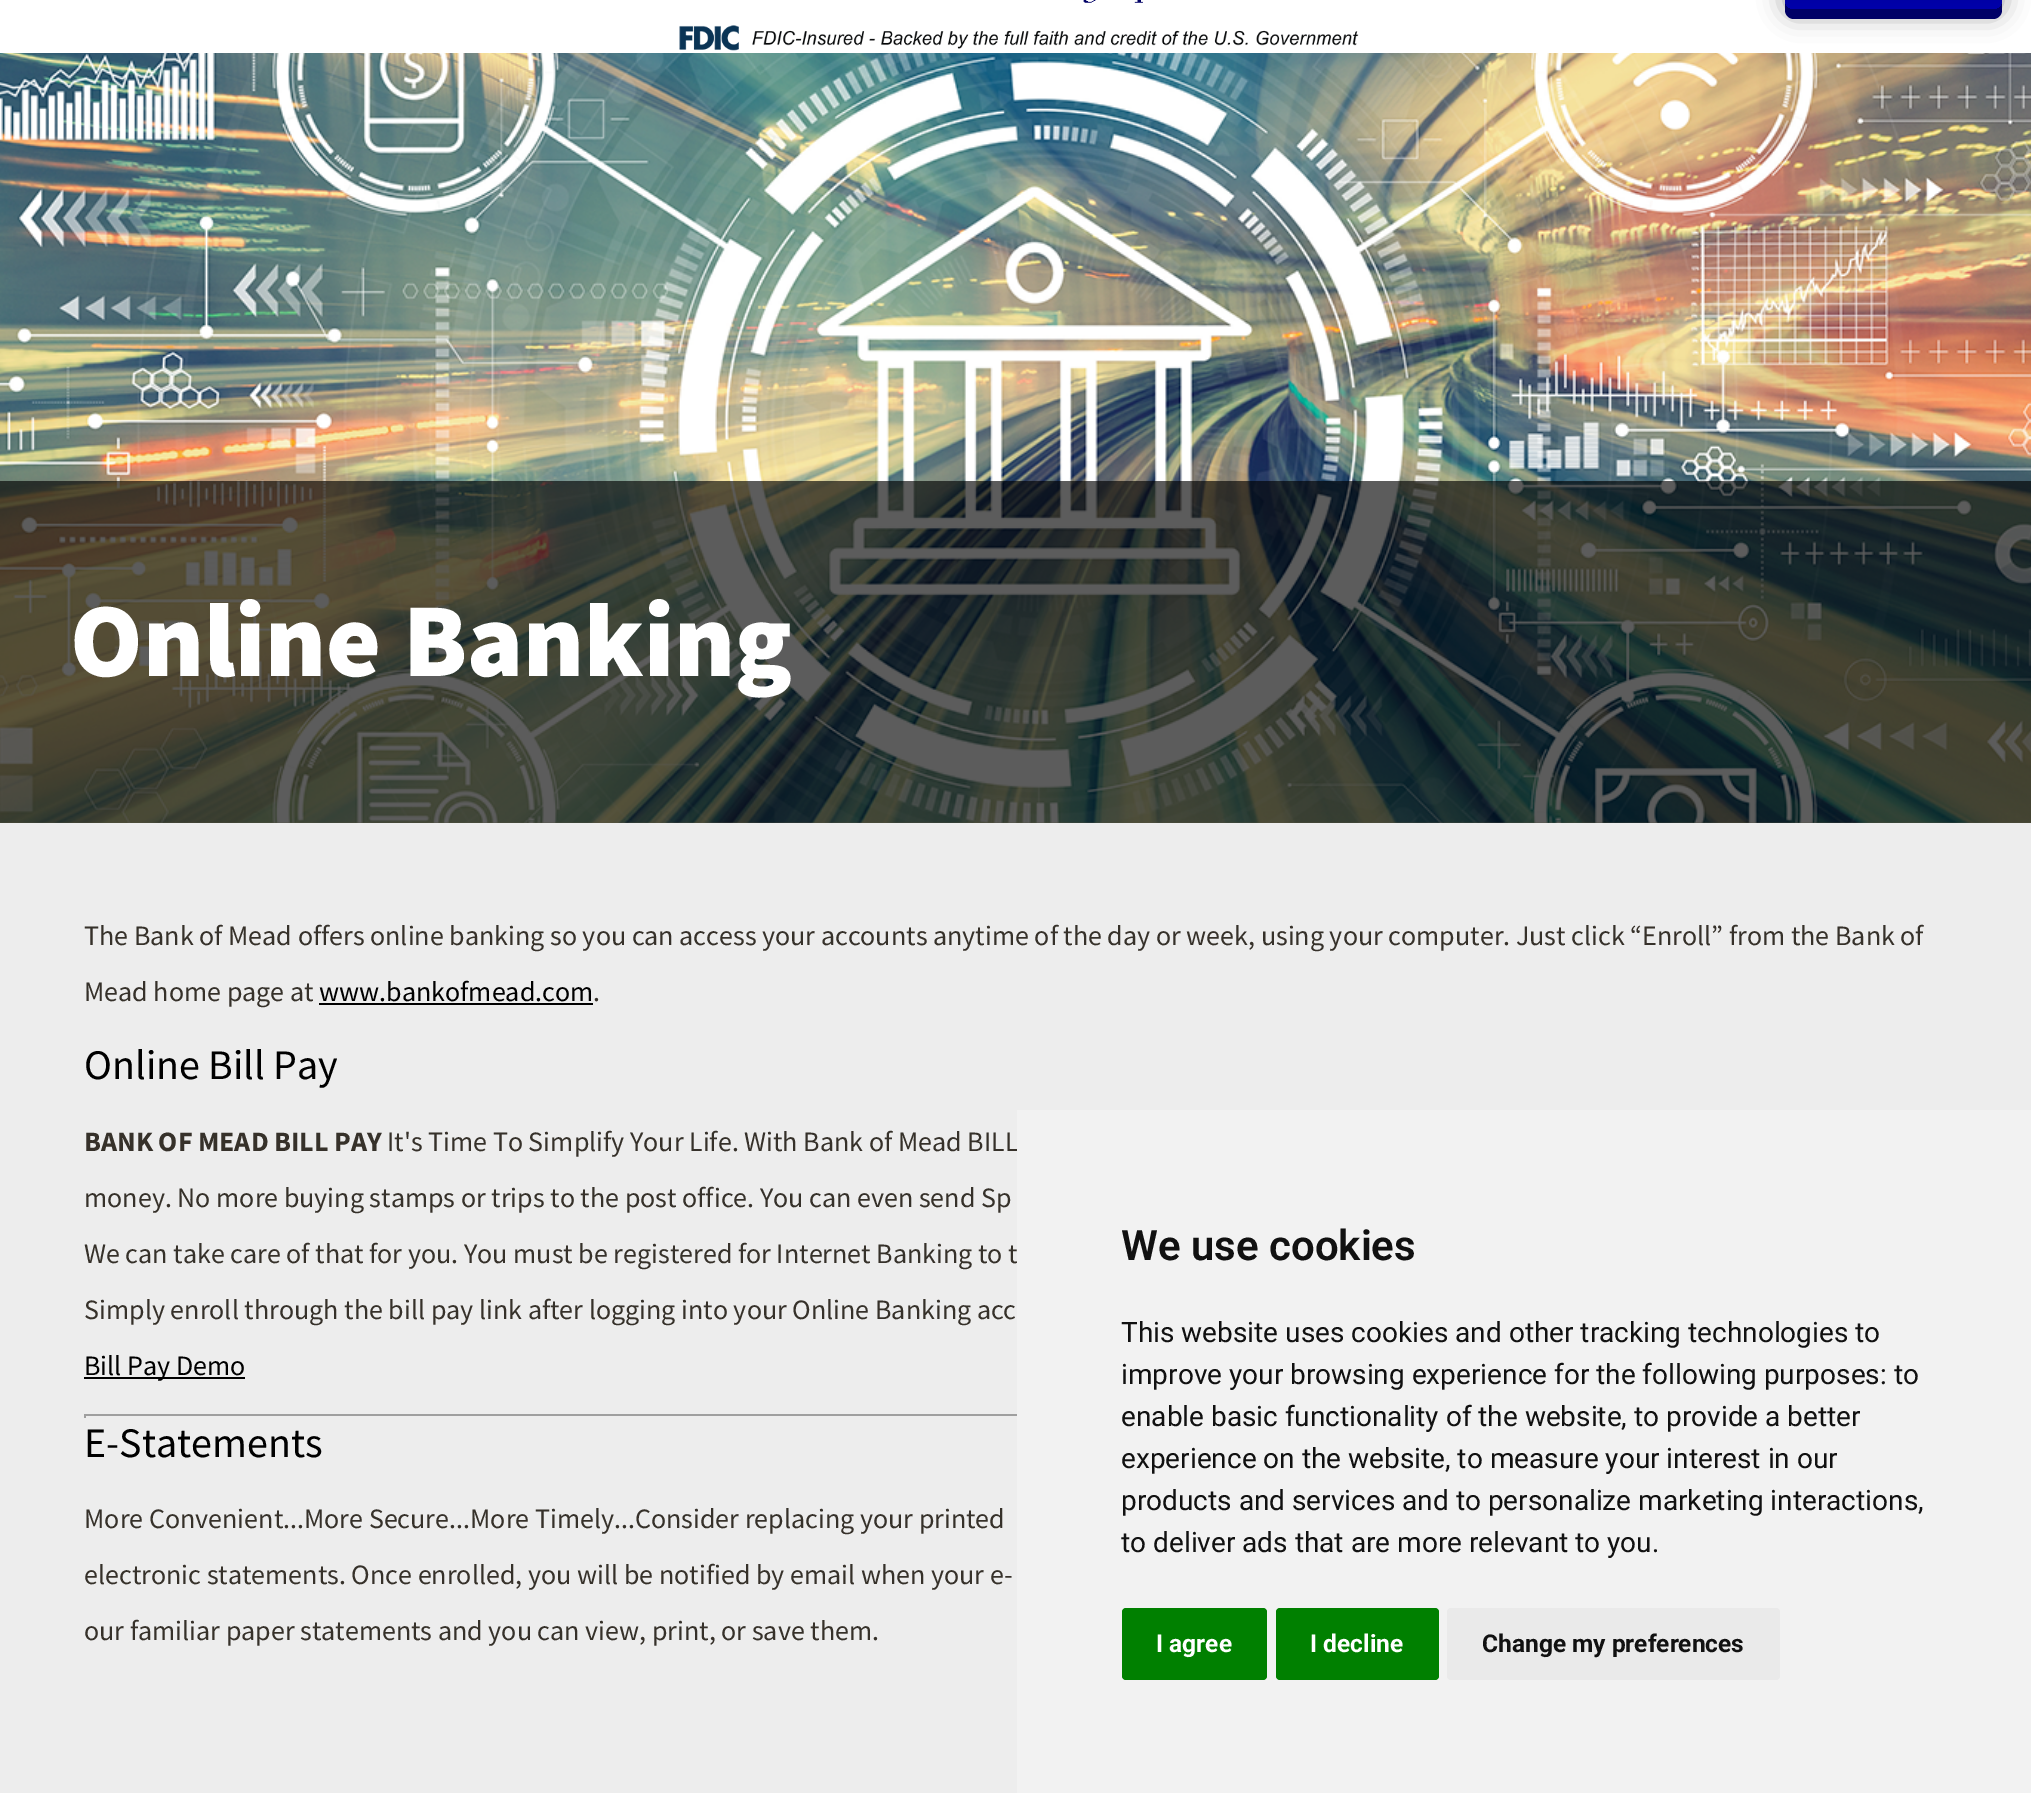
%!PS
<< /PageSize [2031 1793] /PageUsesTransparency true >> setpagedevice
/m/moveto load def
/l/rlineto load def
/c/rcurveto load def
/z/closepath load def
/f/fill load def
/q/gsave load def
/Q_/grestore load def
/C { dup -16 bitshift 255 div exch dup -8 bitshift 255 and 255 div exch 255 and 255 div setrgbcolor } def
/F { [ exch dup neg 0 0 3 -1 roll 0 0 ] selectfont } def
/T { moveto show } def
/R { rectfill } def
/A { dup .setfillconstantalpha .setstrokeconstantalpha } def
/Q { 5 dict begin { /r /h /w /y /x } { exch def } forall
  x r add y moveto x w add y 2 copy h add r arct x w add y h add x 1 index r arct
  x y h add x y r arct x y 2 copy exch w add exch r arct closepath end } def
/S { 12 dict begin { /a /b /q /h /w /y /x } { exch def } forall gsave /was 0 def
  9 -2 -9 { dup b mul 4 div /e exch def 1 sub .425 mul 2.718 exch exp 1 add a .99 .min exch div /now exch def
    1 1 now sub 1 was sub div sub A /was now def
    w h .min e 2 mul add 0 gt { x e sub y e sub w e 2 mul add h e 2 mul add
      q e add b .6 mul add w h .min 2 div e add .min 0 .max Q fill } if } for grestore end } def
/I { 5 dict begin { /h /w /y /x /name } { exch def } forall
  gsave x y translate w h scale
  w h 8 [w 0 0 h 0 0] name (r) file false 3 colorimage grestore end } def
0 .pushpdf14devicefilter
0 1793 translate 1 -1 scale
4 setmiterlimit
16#FFFFFF C
0 0 2031 1793 R
(1.rgb) 1083 0 60 3 I
(2.rgb) 679 25 680 26 I
(3.rgb) 0 53 2031 770 I
16#000000 C
1785 -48 217 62 9 13 .4 S
16#000066 C
1785 0 m 0 10 l 0 5 4 9 9 9 c 199 0 l 5 0 9 -4 9 -9 c 0 -10 l 0 5 -4 9 -9 9 c -199 0 l -5 0 -9 -4 -9 -9 c z f
q 1785 -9 217 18 9 Q clip newpath
<< /ShadingType 2 /ColorSpace /DeviceRGB /Coords [1785 9 1785 -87] /Extend [true true] /Function << /FunctionType 2 /Domain [0 1] /C0 [0 0 .671] /C1 [0 0 .4] /N 1 >> >> shfill Q_
0.64 A
16#000000 C
0 481 2031 342 R
/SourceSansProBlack-Black 105 F
1 A
16#FFFFFF C
(Online Banking) 70 676 T
16#EDEDED C
0 823 2031 970 R
/SourceSansPro-Regular 28 F
16#36312A C
(The Bank of Mead offers online banking so you can access your accounts anytime of the day or week, using your computer. Just click “Enroll” from the Bank of) 84 945 T
(Mead home page at) 84 1001 T
16#000000 C
(www.bankofmead.com) 319 1001 T
319 1003 274 2 R
16#36312A C
(.) 593 1001 T
/SourceSansPro-Regular 42 F
16#000000 C
(Online Bill Pay) 84 1079 T
/SourceSansPro-Bold 28 F
16#36312A C
(BANK OF MEAD BILL PAY) 84 1151 T
/SourceSansPro-Regular 28 F
(It's Time To Simplify Your Life. With Bank of Mead BILL) 387 1151 T
(money. No more buying stamps or trips to the post office. You can even send Sp) 84 1207 T
(We can take care of that for you. You must be registered for Internet Banking to t) 84 1263 T
(Simply enroll through the bill pay link after logging into your Online Banking acc) 84 1319 T
16#000000 C
84 1377 161 2 R
(Bill Pay Demo) 84 1375 T
16#9F9F9F C
84 1414 933 2 R
84 1414 2 4 R
/SourceSansPro-Regular 42 F
16#000000 C
(E-Statements) 84 1457 T
/SourceSansPro-Regular 28 F
16#36312A C
(More Convenient...More Secure...More Timely...Consider replacing your printed) 84 1528 T
(electronic statements. Once enrolled, you will be notified by email when your e-) 84 1584 T
(our familiar paper statements and you can view, print, or save them.) 84 1640 T
16#F2F2F2 C
1017 1110 1014 683 R
/Roboto-SemiBold 42 F
16#111111 C
(We use cookies) 1121 1260 T
/Roboto-Regular 28 F
(This website uses cookies and other tracking technologies to) 1121 1342 T
(improve your browsing experience for the following purposes: to) 1121 1384 T
(enable basic functionality of the website, to provide a better) 1121 1426 T
(experience on the website, to measure your interest in our) 1121 1468 T
(products and services and to personalize marketing interactions,) 1121 1510 T
(to deliver ads that are more relevant to you.) 1121 1552 T
16#008000 C
1122 1608 145 72 4 Q f
/Roboto-Bold 24.5 F
16#FFFFFF C
(I agree) 1156 1652 T
16#008000 C
1276 1608 163 72 4 Q f
16#FFFFFF C
(I decline) 1310 1652 T
16#EAEAEA C
1447 1608 333 72 4 Q f
16#111111 C
(Change my preferences) 1482 1652 T
.poppdf14devicefilter showpage
